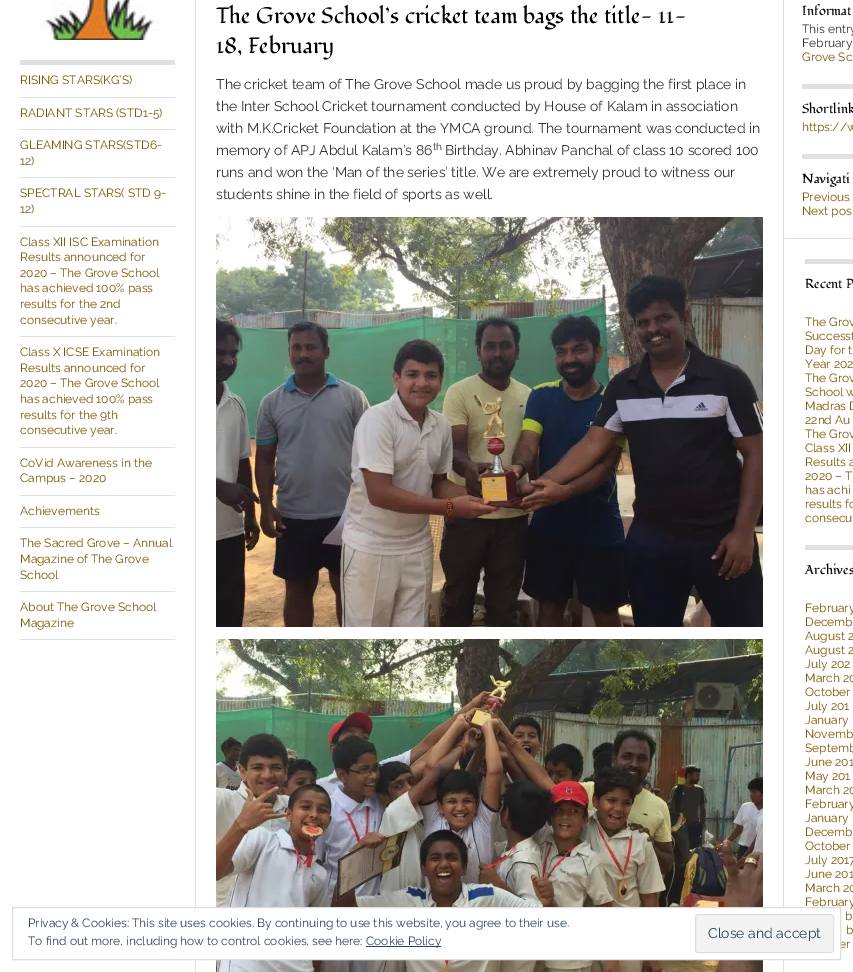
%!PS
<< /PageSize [853 972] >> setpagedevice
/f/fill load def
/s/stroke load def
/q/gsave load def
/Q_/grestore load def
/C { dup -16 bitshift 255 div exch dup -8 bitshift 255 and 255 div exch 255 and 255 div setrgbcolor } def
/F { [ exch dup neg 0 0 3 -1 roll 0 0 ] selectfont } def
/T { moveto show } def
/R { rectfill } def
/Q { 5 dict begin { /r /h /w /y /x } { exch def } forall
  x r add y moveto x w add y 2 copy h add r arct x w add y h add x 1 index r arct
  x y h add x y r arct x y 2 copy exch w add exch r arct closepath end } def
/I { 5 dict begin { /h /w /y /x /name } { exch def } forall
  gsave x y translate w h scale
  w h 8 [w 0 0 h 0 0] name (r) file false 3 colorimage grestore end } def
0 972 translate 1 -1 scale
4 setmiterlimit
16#FFFFFF C
0 0 853 972 R
(1.rgb) 40 0 121 40 I
16#E0E0E0 C
20 60 155 5 R
20 97 155 1 R
/Raleway-Regular 12 F
16#835504 C
(RISING STARS\(KG’S\)) 20 84 T
16#E0E0E0 C
20 129 155 1 R
16#835504 C
(RADIANT STARS \(STD1-5\)) 20 117 T
16#E0E0E0 C
20 177 155 1 R
16#835504 C
(GLEAMING STARS\(STD6-) 20 149 T
(12\)) 20 165 T
16#E0E0E0 C
20 226 155 1 R
16#835504 C
(SPECTRAL STARS\( STD 9-) 20 197 T
(12\)) 20 213 T
16#E0E0E0 C
20 336 155 1 R
16#835504 C
(Class XII ISC Examination) 20 246 T
(Results announced for) 20 261 T
(2020 – The Grove School) 20 277 T
(has achieved 100% pass) 20 292 T
(results for the 2nd) 20 308 T
(consecutive year.) 20 324 T
16#E0E0E0 C
20 447 155 1 R
16#835504 C
(Class X ICSE Examination) 20 356 T
(Results announced for) 20 372 T
(2020 – The Grove School) 20 387 T
(has achieved 100% pass) 20 403 T
(results for the 9th) 20 419 T
(consecutive year.) 20 434 T
16#E0E0E0 C
20 495 155 1 R
16#835504 C
(CoVid Awareness in the) 20 467 T
(Campus – 2020) 20 482 T
16#E0E0E0 C
20 527 155 1 R
16#835504 C
(Achievements) 20 515 T
16#E0E0E0 C
20 591 155 1 R
16#835504 C
(The Sacred Grove – Annual) 20 547 T
(Magazine of The Grove) 20 563 T
(School) 20 579 T
16#E0E0E0 C
20 639 155 1 R
16#835504 C
(About The Grove School) 20 611 T
(Magazine) 20 627 T
16#E0E0E0 C
783 0 1 972 R
195 0 1 972 R
/Fondamento-Regular 22 F
16#000000 C
(The Grove School’s cricket team bags the title- 11-) 216 23 T
(18, February) 216 53 T
/Raleway-Regular 14 F
16#333333 C
(The cricket team of The Grove School made us proud by bagging the first place in) 216 89 T
(the Inter School Cricket tournament conducted by House of Kalam in association) 216 111 T
(with M.K.Cricket Foundation at the YMCA ground. The tournament was conducted in) 216 133 T
(memory of APJ Abdul Kalam’s 86) 216 155 T
/Raleway-Regular 10 F
(th) 433 150 T
/Raleway-Regular 14 F
(Birthday. Abhinav Panchal of class 10 scored 100) 445 155 T
(runs and won the ‘Man of the series’ title. We are extremely proud to witness our) 216 177 T
(students shine in the field of sports as well.) 216 199 T
(2.rgb) 216 217 547 410 I
(3.rgb) 216 639 547 333 I
/Fondamento-Regular 13 F
16#000000 C
(Informat) 802 15 T
/Raleway-Regular 12 F
16#333333 C
(This entry) 802 33 T
(February) 802 47 T
16#835504 C
(Grove Sc) 802 61 T
16#E0E0E0 C
802 84 51 5 R
/Fondamento-Regular 13 F
16#000000 C
(Shortlink) 802 113 T
/Raleway-Regular 12 F
16#835504 C
(https://w) 802 131 T
16#E0E0E0 C
802 154 51 5 R
/Fondamento-Regular 13 F
16#000000 C
(Navigati) 802 183 T
/Raleway-Regular 12 F
16#835504 C
(Previous) 802 201 T
(Next pos) 802 215 T
16#E0E0E0 C
785 238 68 1 R
805 259 48 5 R
/Fondamento-Regular 13 F
16#000000 C
(Recent P) 805 288 T
/Raleway-Regular 12 F
16#835504 C
(The Grov) 805 326 T
(Successf) 805 340 T
(Day for t) 805 354 T
(Year 202) 805 368 T
(The Grov) 805 382 T
(School w) 805 396 T
(Madras D) 805 410 T
(22nd Au) 805 424 T
(The Grov) 805 438 T
(Class XII) 805 452 T
(Results a) 805 466 T
(2020 – T) 805 480 T
(has achi) 805 494 T
(results fo) 805 508 T
(consecu) 805 522 T
16#E0E0E0 C
805 545 48 5 R
/Fondamento-Regular 13 F
16#000000 C
(Archives) 805 574 T
/Raleway-Regular 12 F
16#835504 C
(February) 805 612 T
(Decemb) 805 626 T
(August 2) 805 640 T
(August 2) 805 654 T
(July 202) 805 668 T
(March 20) 805 682 T
(October) 805 696 T
(July 201) 805 710 T
(January) 805 724 T
(Novemb) 805 738 T
(Septemb) 805 752 T
(June 201) 805 766 T
(May 201) 805 780 T
(March 20) 805 794 T
(February) 805 808 T
(January) 805 822 T
(Decemb) 805 836 T
(October) 805 850 T
(July 2017) 805 864 T
(June 201) 805 878 T
(March 20) 805 892 T
(February) 805 906 T
(b) 845 920 T
(b) 846 934 T
(er) 839 948 T
16#FFFFFF C
195 908 645 51 R
16#DEDEDE C
12.5 907.5 828 52 rectstroke
16#2E4467 C
(Privacy & Cookies: This site uses cookies. By continuing to use this website, you agree to their use.) 28 927 T
(To find out more, including how to control cookies, see here:) 28 945 T
366 946 75 1 R
(Cookie Policy) 366 945 T
16#F3F3F3 C
695.5 914.5 138 38 2.5 Q q f Q_
16#DEDEDE C
s
/Raleway-Regular 14 F
16#2E4453 C
(Close and accept) 708 938 T
showpage
